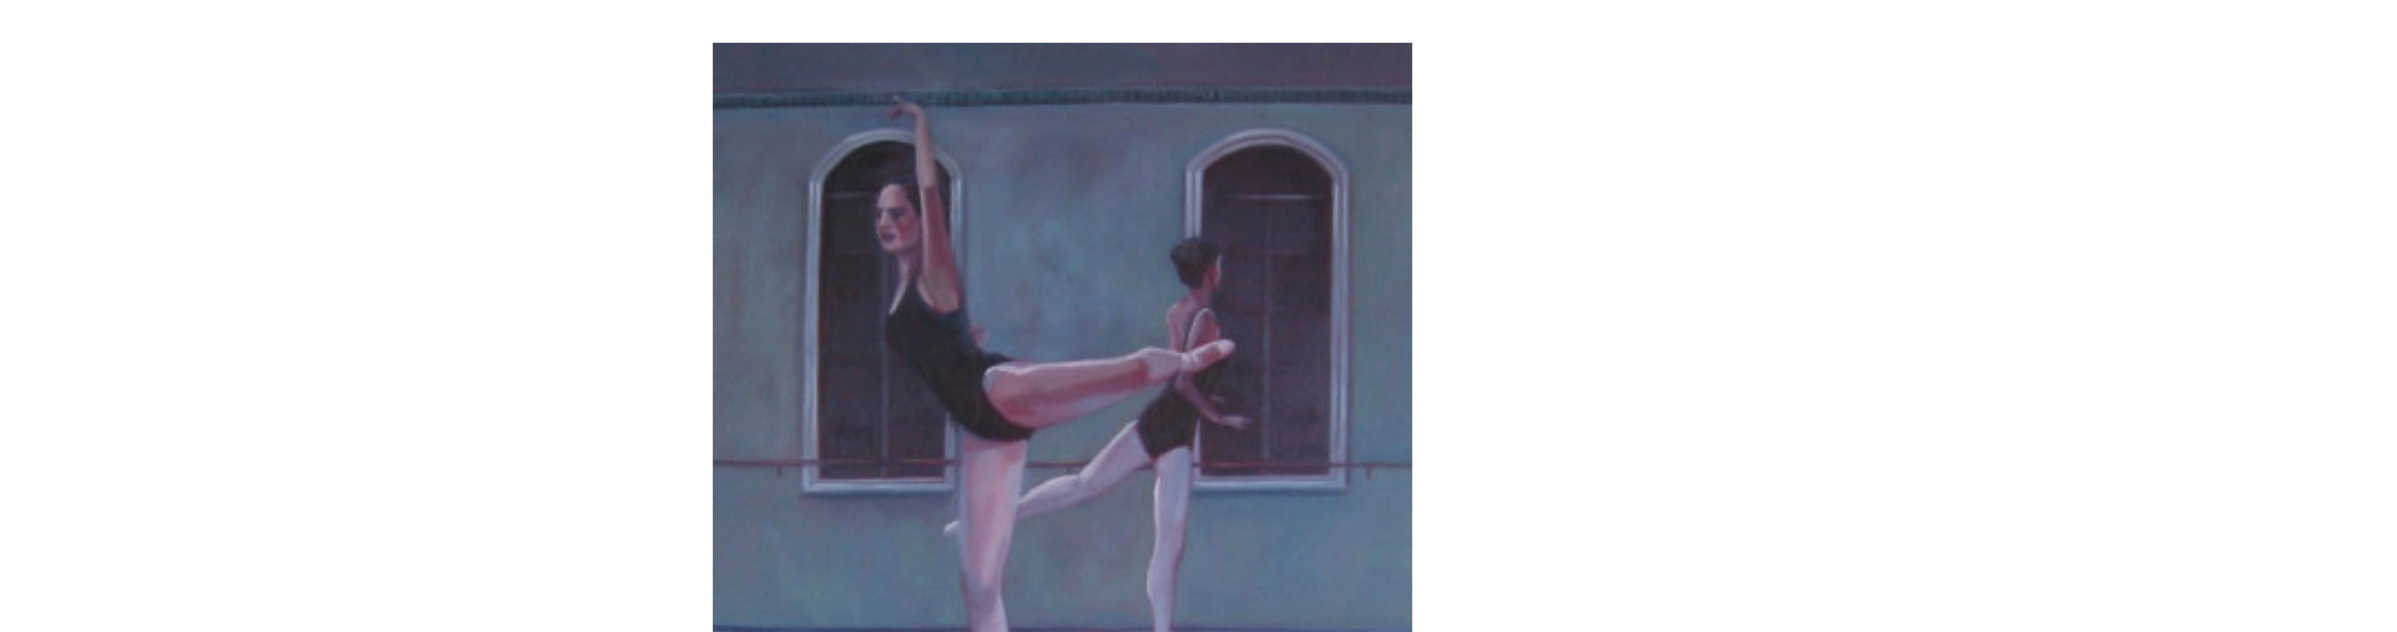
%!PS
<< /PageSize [2397 632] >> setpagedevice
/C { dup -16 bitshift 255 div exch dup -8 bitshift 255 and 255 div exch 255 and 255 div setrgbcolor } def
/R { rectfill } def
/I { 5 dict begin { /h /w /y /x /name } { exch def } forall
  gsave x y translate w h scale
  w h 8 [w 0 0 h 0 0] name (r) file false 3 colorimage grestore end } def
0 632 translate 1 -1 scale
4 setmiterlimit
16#FFFFFF C
0 0 2397 632 R
(1.rgb) 712 42 701 590 I
showpage
